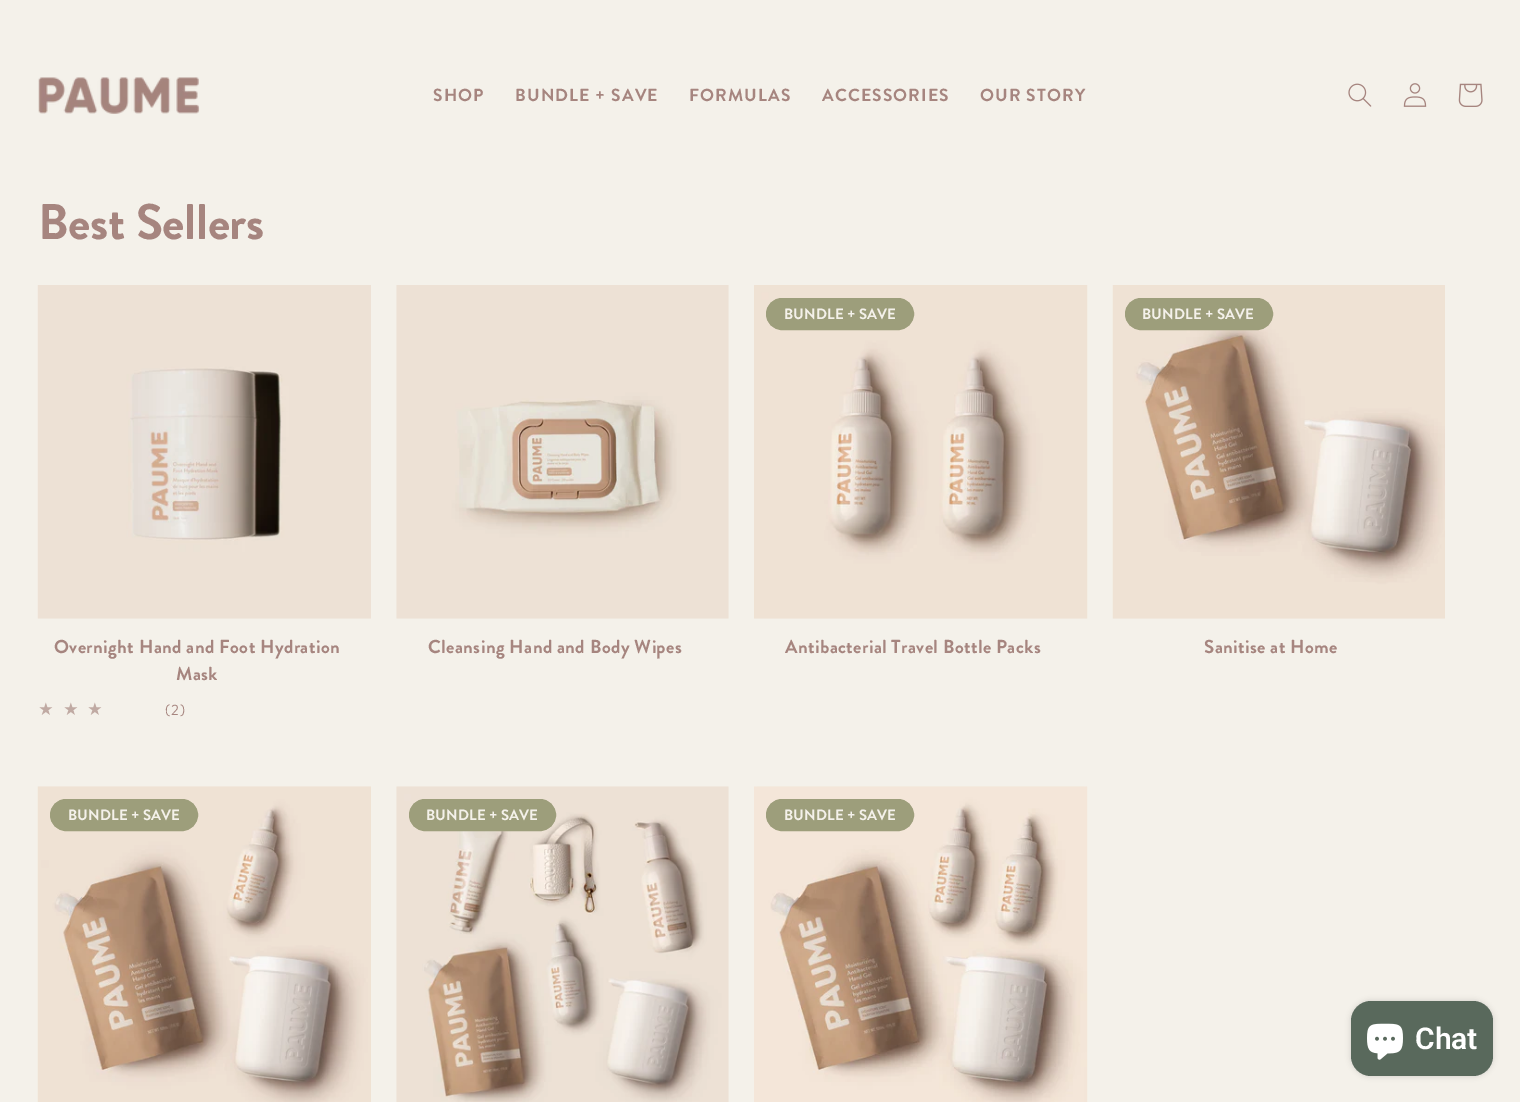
%!PS
<< /PageSize [1520 1102] /PageUsesTransparency true >> setpagedevice
/m/moveto load def
/f/fill load def
/s/stroke load def
/q/gsave load def
/Q_/grestore load def
/C { dup -16 bitshift 255 div exch dup -8 bitshift 255 and 255 div exch 255 and 255 div setrgbcolor } def
/F { [ exch dup neg 0 0 3 -1 roll 0 0 ] selectfont } def
/T { moveto show } def
/R { rectfill } def
/A { dup .setfillconstantalpha .setstrokeconstantalpha } def
/Q { 5 dict begin { /r /h /w /y /x } { exch def } forall
  x r add y moveto x w add y 2 copy h add r arct x w add y h add x 1 index r arct
  x y h add x y r arct x y 2 copy exch w add exch r arct closepath end } def
/S { 12 dict begin { /a /b /q /h /w /y /x } { exch def } forall gsave /was 0 def
  9 -2 -9 { dup b mul 4 div /e exch def 1 sub .425 mul 2.718 exch exp 1 add a .99 .min exch div /now exch def
    1 1 now sub 1 was sub div sub A /was now def
    w h .min e 2 mul add 0 gt { x e sub y e sub w e 2 mul add h e 2 mul add
      q e add b .6 mul add w h .min 2 div e add .min 0 .max Q fill } if } for grestore end } def
/I { 5 dict begin { /h /w /y /x /name } { exch def } forall
  gsave x y translate w h scale
  w h 8 [w 0 0 h 0 0] name (r) file false 3 colorimage grestore end } def
0 .pushpdf14devicefilter
0 1102 translate 1 -1 scale
4 setmiterlimit
16#F4F1EA C
0 0 1520 1102 R
(1.rgb) 38 77 162 37 I
/BrandonGrotesque-Bold 17.5 F
16#A6857F C
433 101 m 1.1 0 (SHOP) ashow
515 101 m 1.1 0 (BUNDLE + SAVE) ashow
689 101 m 1.1 0 (FORMULAS) ashow
822 101 m 1.1 0 (ACCESSORIES) ashow
980 101 m 1.1 0 (OUR STORY) ashow
(2.rgb) 1348 83 24 24 I
(3.rgb) 1403 83 24 24 I
(4.rgb) 1458 83 25 24 I
/BrandonGrotesque-Bold 50 F
38 239 m -.4 0 (Best Sellers) ashow
(5.rgb) 754 285 334 334 I
16#9D9E7B C
766.5 298.5 147 31 15.5 Q q f Q_
s
/BrandonGrotesque-Bold 15 F
16#F4F1EA C
784 319 m .1 0 (BUNDLE + SAVE) ashow
/BrandonGrotesque-Bold 18.75 F
16#A6857F C
785 653 m .4 0 (Antibacterial Travel Bottle Packs) ashow
(6.rgb) 1112 285 333 334 I
16#9D9E7B C
1125.5 298.5 147 31 15.5 Q q f Q_
s
/BrandonGrotesque-Bold 15 F
16#F4F1EA C
1142 319 m .1 0 (BUNDLE + SAVE) ashow
/BrandonGrotesque-Bold 18.75 F
16#A6857F C
1204 653 m .4 0 (Sanitise at Home) ashow
(7.rgb) 37 285 334 334 I
54 653 m .4 0 (Overnight Hand and Foot Hydration) ashow
176 680 m .4 0 (Mask) ashow
/DejaVuSans-Regular 17.5 F
16#C0AAA3 C
38 715 m 9 0 (★★★) ashow
/BrandonGrotesque-Regular 15 F
16#A6857F C
165 715 m 1 0 (\(2\)) ashow
(8.rgb) 396 285 333 334 I
/BrandonGrotesque-Bold 18.75 F
428 653 m .4 0 (Cleansing Hand and Body Wipes) ashow
(9.rgb) 37 786 334 316 I
16#9D9E7B C
50.5 799.5 147 31 15.5 Q q f Q_
s
/BrandonGrotesque-Bold 15 F
16#F4F1EA C
68 820 m .1 0 (BUNDLE + SAVE) ashow
(10.rgb) 396 786 333 316 I
16#9D9E7B C
409.5 799.5 146 31 15.5 Q q f Q_
s
16#F4F1EA C
426 820 m .1 0 (BUNDLE + SAVE) ashow
(11.rgb) 754 786 334 316 I
16#9D9E7B C
766.5 799.5 147 31 15.5 Q q f Q_
s
16#F4F1EA C
784 820 m .1 0 (BUNDLE + SAVE) ashow
16#000000 C
1351 1001 142 75 20 3 .15 S
16#59695C C
1351 1001 142 75 20 Q f
(12.rgb) 1367 1023 36 37 I
/Roboto-SemiBold 30 F
16#FFFFFF C
(Chat) 1415 1049 T
.poppdf14devicefilter showpage
